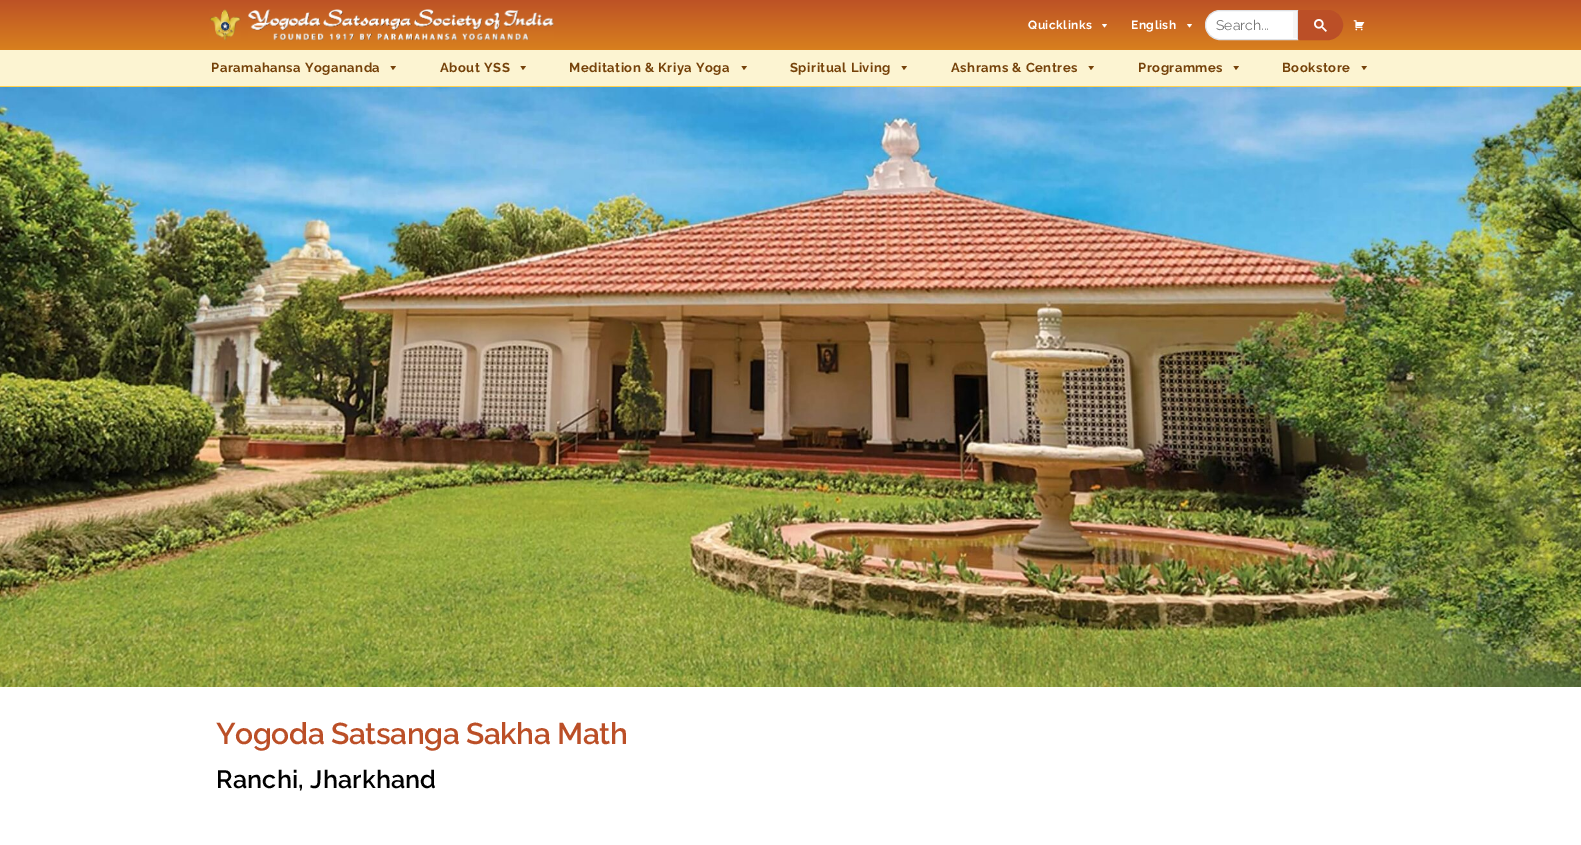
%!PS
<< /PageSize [1581 845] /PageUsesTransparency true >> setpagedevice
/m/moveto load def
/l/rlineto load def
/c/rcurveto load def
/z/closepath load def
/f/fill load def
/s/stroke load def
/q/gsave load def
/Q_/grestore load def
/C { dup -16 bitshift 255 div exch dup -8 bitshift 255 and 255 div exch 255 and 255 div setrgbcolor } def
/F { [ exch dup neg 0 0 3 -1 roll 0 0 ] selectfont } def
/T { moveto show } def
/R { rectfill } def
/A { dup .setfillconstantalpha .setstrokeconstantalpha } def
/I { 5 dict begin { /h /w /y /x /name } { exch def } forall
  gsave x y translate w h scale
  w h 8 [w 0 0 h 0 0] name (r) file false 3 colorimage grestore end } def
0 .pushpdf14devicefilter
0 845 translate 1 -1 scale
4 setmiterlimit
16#FFFFFF C
0 0 1581 845 R
q 0 0 m 1581 0 l 0 50 l -1581 0 l z clip newpath
<< /ShadingType 2 /ColorSpace /DeviceRGB /Coords [791 0 791 50] /Extend [true true] /Function << /FunctionType 2 /Domain [0 1] /C0 [.741 .322 .149] /C1 [.847 .502 .118] /N 1 >> >> shfill Q_
(1.rgb) 209 9 32 32 I
(2.rgb) 248 9 306 32 I
/Raleway-Bold 12 F
1028 29 m .5 0 (Quicklinks) ashow
1107 24 m -2.5 3.5 l -2.5 -3.5 l z f
1131 29 m .5 0 (English) ashow
1192 24 m -2.5 3.5 l -2.5 -3.5 l z f
1220 10.5 m 77.5 0 l 0 29 l -77.5 0 l -8 0 -14.5 -6.5 -14.5 -14.5 c 0 -8 6.5 -14.5 14.5 -14.5 c z q f Q_
16#DFE1E5 C
s
/Raleway-Regular 14 F
16#757575 C
(Search...) 1216 30 T
16#F6F6F6 C
1293 11 4 27 R
0.07 A
16#808080 C
1298 10 m 30 0 l 8.5 0 15 6.5 15 15 c 0 8.5 -6.5 15 -15 15 c -30 0 l z f
1 A
16#BB4F27 C
1300 10.5 m 28 0 l 8 0 14.5 6.5 14.5 14.5 c 0 8 -6.5 14.5 -14.5 14.5 c -28 0 l -1 0 -1.5 -.5 -1.5 -1.5 c 0 -26 l 0 -1 .5 -1.5 1.5 -1.5 c z q f Q_
s
(3.rgb) 1314 19 13 13 I
(4.rgb) 1353 20 12 11 I
16#FFD14E C
0 86 1581 1 R
16#FCF4D2 C
0 50 1581 36 R
/Raleway-Bold 13 F
16#75420A C
211 72 m .5 0 (Paramahansa Yogananda) ashow
396 66 m -3 4 l -2.5 -4 l z f
440 72 m .5 0 (About YSS) ashow
526 66 m -3 4 l -2.5 -4 l z f
569 72 m .5 0 (Meditation & Kriya Yoga) ashow
747 66 m -3 4 l -2.5 -4 l z f
790 72 m .5 0 (Spiritual Living) ashow
907 66 m -3 4 l -2.5 -4 l z f
951 72 m .5 0 (Ashrams & Centres) ashow
1094 66 m -3 4 l -2.5 -4 l z f
1138 72 m .5 0 (Programmes) ashow
1239 66 m -3 4 l -2.5 -4 l z f
1282 72 m .5 0 (Bookstore) ashow
1367 66 m -3 4 l -2.5 -4 l z f
(5.rgb) 0 87 1581 600 I
/Raleway-SemiBold 30 F
16#BB4F27 C
216 744 m -.45 0 (Yogoda Satsanga Sakha Math) ashow
/Raleway-SemiBold 25 F
16#000000 C
216 788 m .25 0 (Ranchi, Jharkhand) ashow
.poppdf14devicefilter showpage
